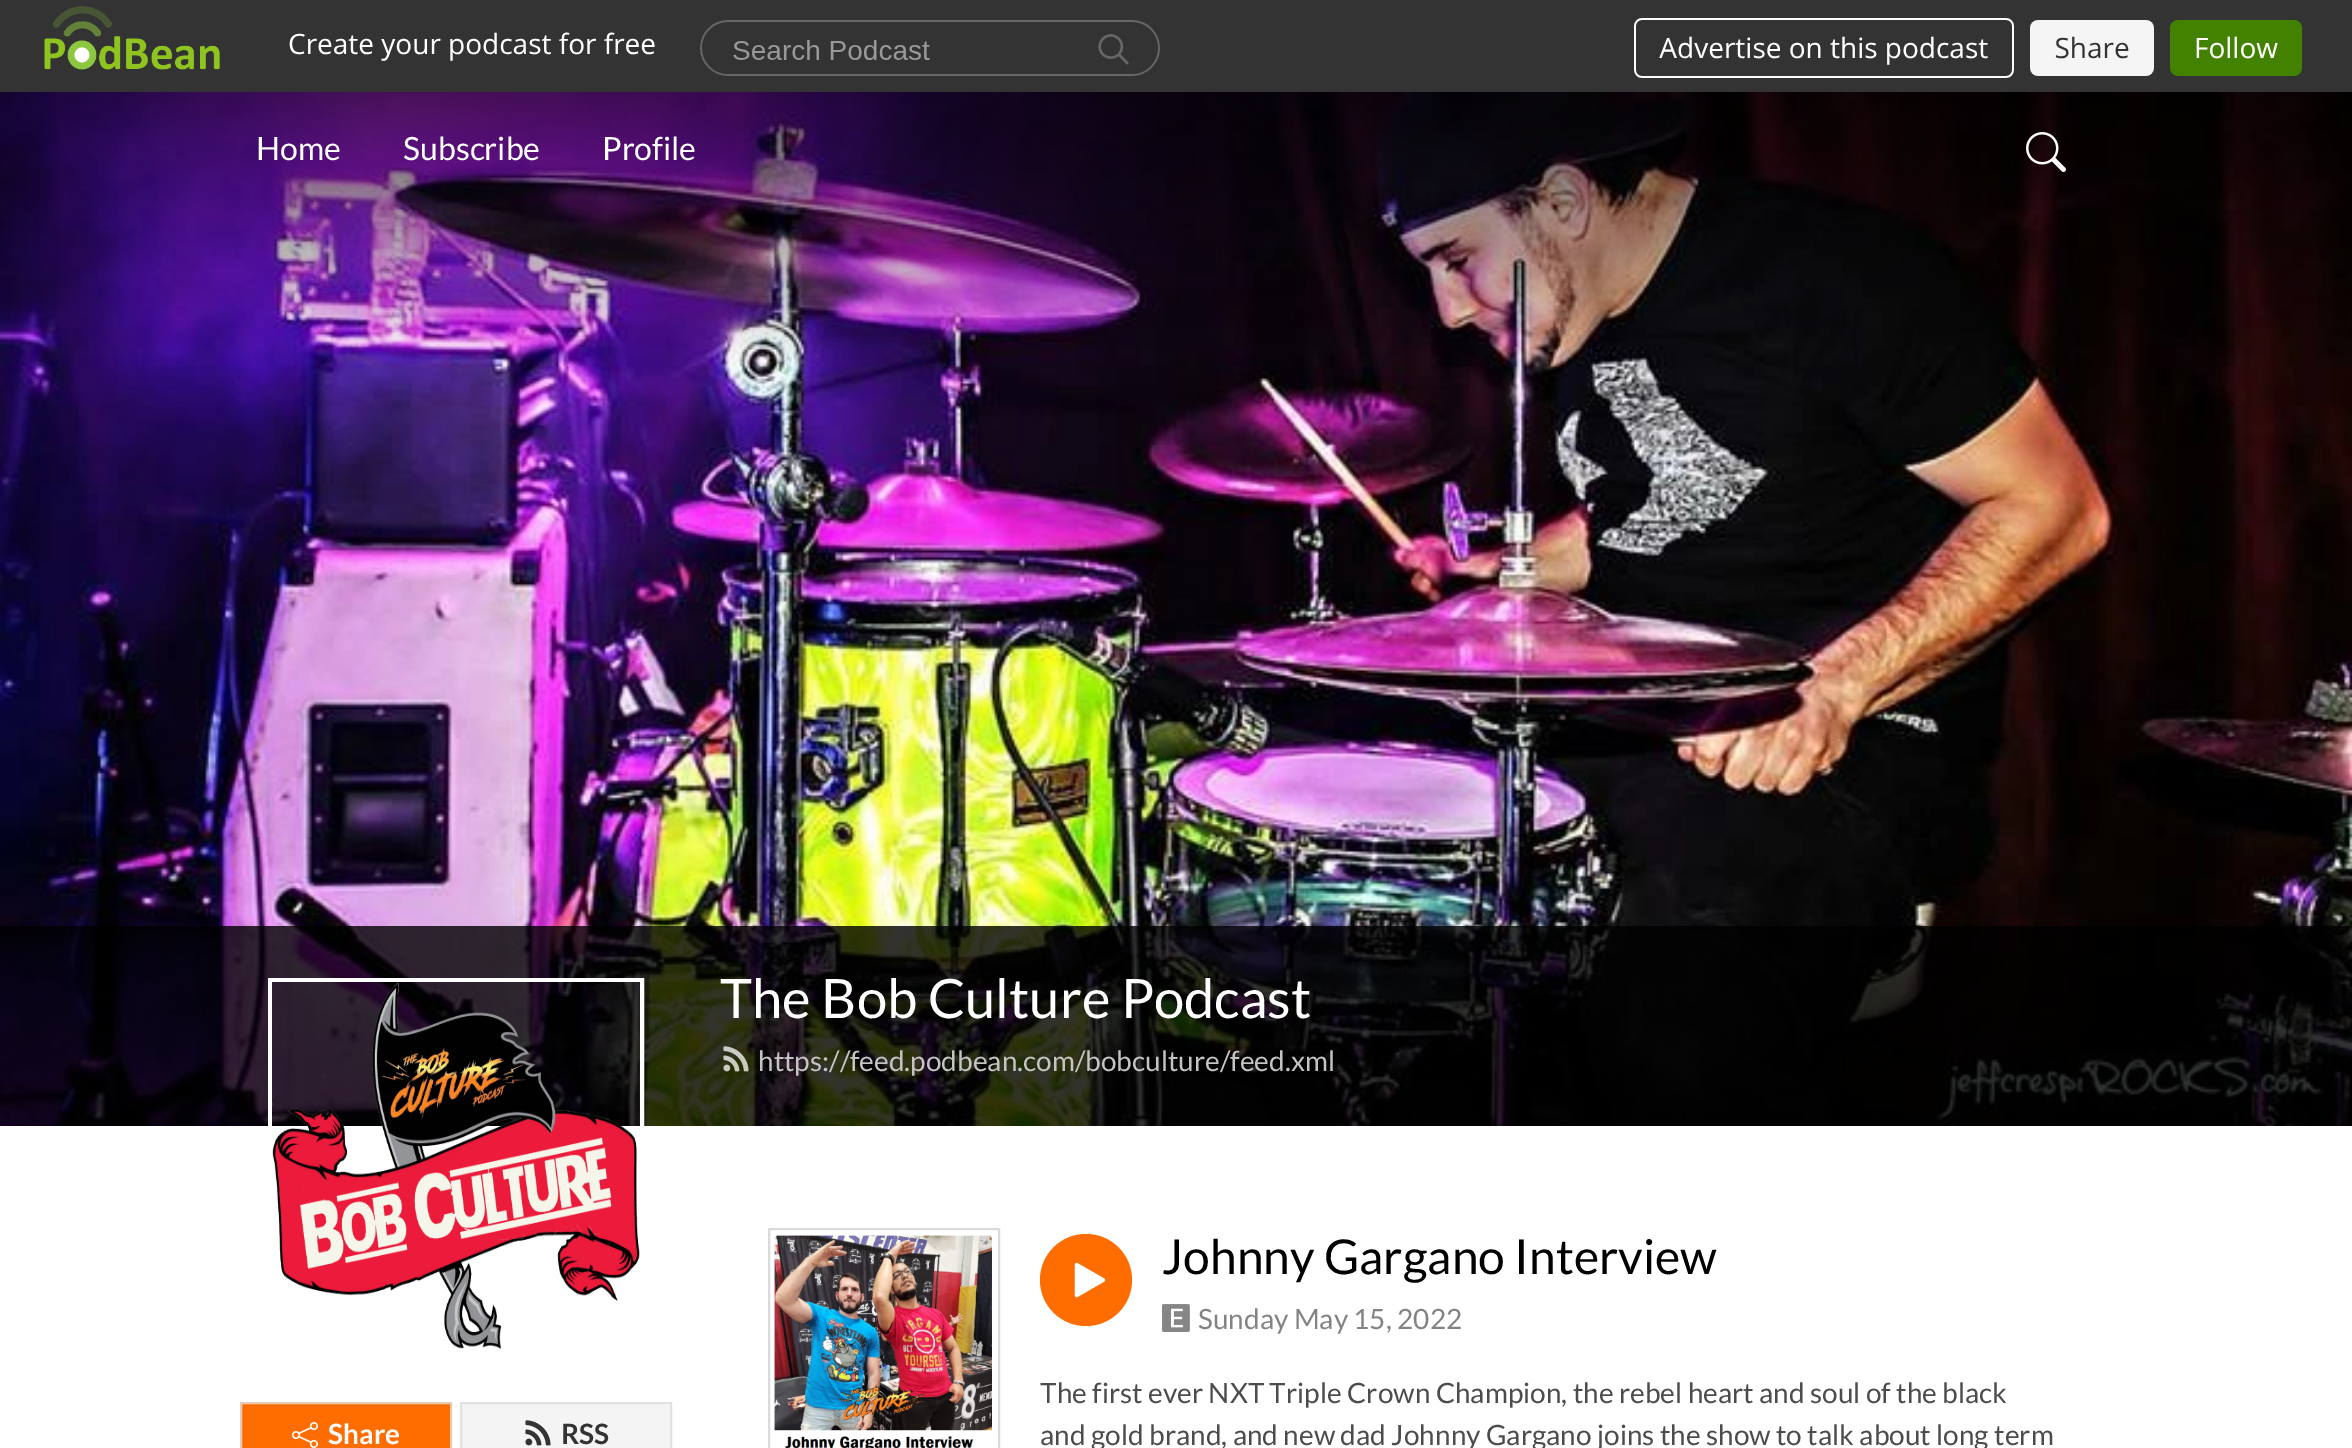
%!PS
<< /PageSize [2352 1448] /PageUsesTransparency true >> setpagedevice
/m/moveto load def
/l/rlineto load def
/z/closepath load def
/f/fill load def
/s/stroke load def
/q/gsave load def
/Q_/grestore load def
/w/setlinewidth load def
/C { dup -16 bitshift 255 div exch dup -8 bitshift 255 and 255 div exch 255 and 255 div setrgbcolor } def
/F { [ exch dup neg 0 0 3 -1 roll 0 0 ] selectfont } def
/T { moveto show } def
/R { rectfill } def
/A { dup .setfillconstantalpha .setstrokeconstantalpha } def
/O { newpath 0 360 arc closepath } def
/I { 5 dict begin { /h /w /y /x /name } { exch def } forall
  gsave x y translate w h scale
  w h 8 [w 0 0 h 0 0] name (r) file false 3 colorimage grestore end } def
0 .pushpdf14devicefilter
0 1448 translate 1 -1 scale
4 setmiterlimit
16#FFFFFF C
0 0 2352 1448 R
16#333333 C
0 0 2352 92 R
(1.rgb) 44 6 2258 72 I
(3.rgb) 0 92 2352 1034 I
/Lato-Regular 32 F
16#FFFFFF C
(Home) 256 160 T
(Subscribe) 403 160 T
(Profile) 602 160 T
(2.rgb) 2026 132 40 40 I
0.8 A
16#000000 C
0 926 2352 200 R
/Lato-Regular 54.4 F
1 A
16#FFFFFF C
(The Bob Culture Podcast) 720 1018 T
(4.rgb) 723 1046 26 26 I
/Lato-Regular 28 F
16#C4C4C3 C
(https://feed.podbean.com/bobculture/feed.xml) 758 1071 T
16#FFFFFF C
4 w
270 980 372 372 rectstroke
(5.rgb) 272 982 368 368 I
16#FF6D00 C
241 1403 m 210 0 l 0 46 l -210 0 l z q f Q_
16#E8CBB5 C
2 w
s
(6.rgb) 292 1422 26 26 I
/Lato-Bold 28 F
16#FFFFFF C
(Share) 328 1444 T
16#F4F4F4 C
461 1403 m 210 0 l 0 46 l -210 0 l z q f Q_
16#E2E2E2 C
s
(7.rgb) 525 1420 26 26 I
16#333333 C
(RSS) 561 1444 T
16#DADADA C
769 1229 230 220 rectstroke
(8.rgb) 774 1235 218 213 I
16#FF6D00 C
1086 1280 46 O f
(9.rgb) 1074 1262 32 36 I
/Lato-Regular 48 F
16#000000 C
(Johnny Gargano Interview) 1162 1274 T
(10.rgb) 1162 1304 28 28 I
/Lato-Regular 28 F
16#838383 C
(Sunday May 15, 2022) 1198 1329 T
16#4C4C4C C
(The first ever NXT Triple Crown Champion, the rebel heart and soul of the black) 1040 1403 T
(and gold brand, and new dad Johnny Gargano joins the show to talk about long term) 1040 1445 T
.poppdf14devicefilter showpage
